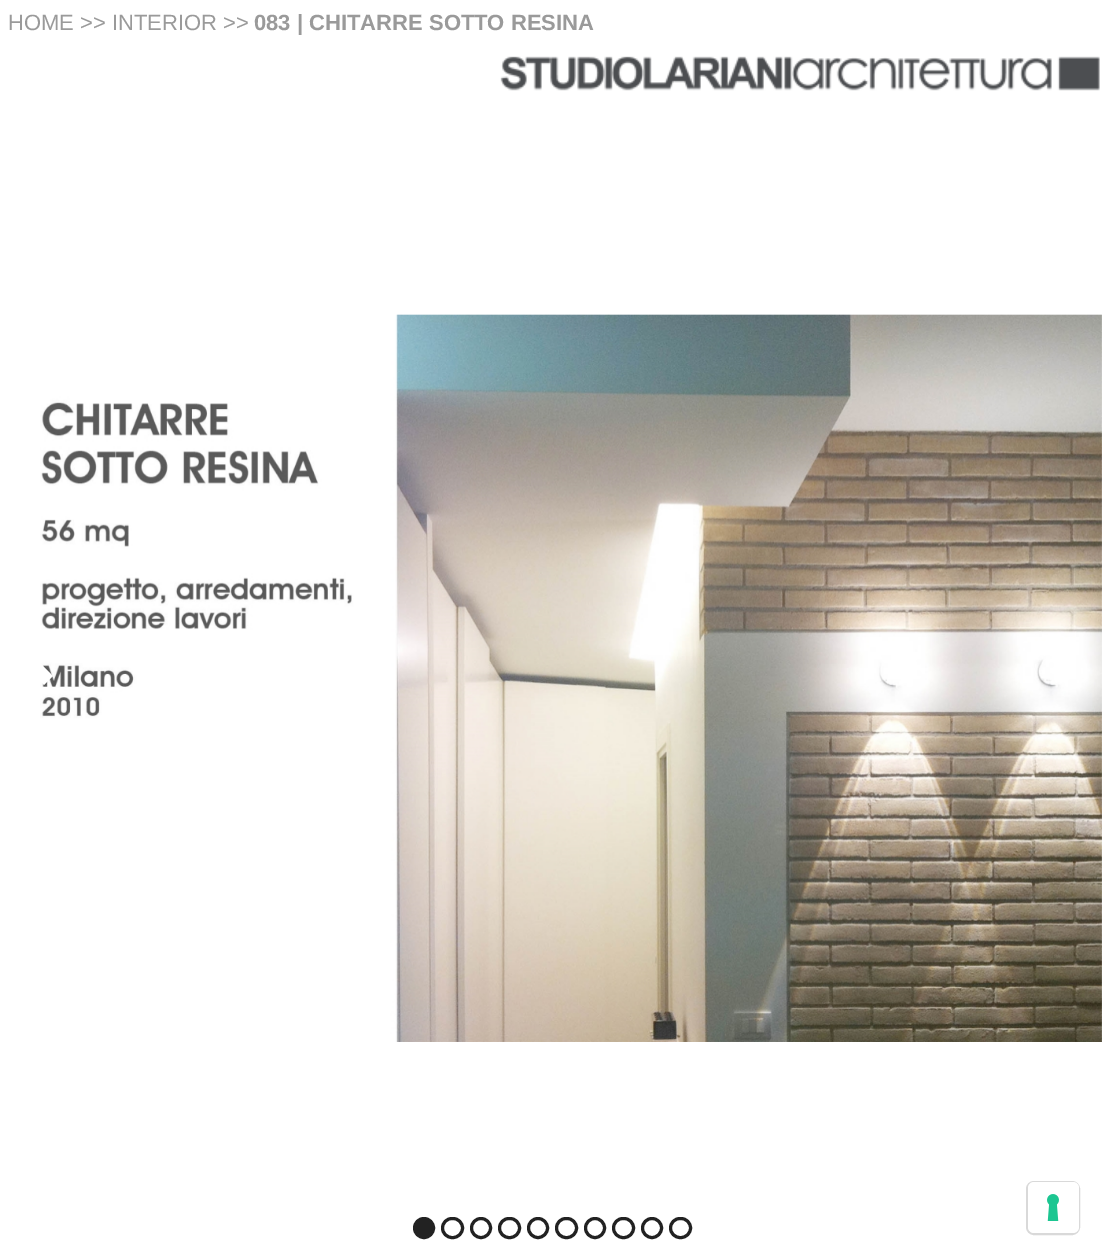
%!PS
<< /PageSize [1102 1256] >> setpagedevice
/m/moveto load def
/l/rlineto load def
/z/closepath load def
/f/fill load def
/s/stroke load def
/q/gsave load def
/Q_/grestore load def
/w/setlinewidth load def
/C { dup -16 bitshift 255 div exch dup -8 bitshift 255 and 255 div exch 255 and 255 div setrgbcolor } def
/F { [ exch dup neg 0 0 3 -1 roll 0 0 ] selectfont } def
/T { moveto show } def
/R { rectfill } def
/O { newpath 0 360 arc closepath } def
/Q { 5 dict begin { /r /h /w /y /x } { exch def } forall
  x r add y moveto x w add y 2 copy h add r arct x w add y h add x 1 index r arct
  x y h add x y r arct x y 2 copy exch w add exch r arct closepath end } def
/I { 5 dict begin { /h /w /y /x /name } { exch def } forall
  gsave x y translate w h scale
  w h 8 [w 0 0 h 0 0] name (r) file false 3 colorimage grestore end } def
0 1256 translate 1 -1 scale
4 setmiterlimit
16#FFFFFF C
0 0 1102 1256 R
/LiberationSans-Regular 22 F
16#9A9A9A C
(HOME >> INTERIOR >>) 8 30 T
/LiberationSans-Bold 22 F
(083 | CHITARRE SOTTO RESINA) 254 30 T
(1.rgb) 500 56 600 35 I
(2.rgb) 40 314 1062 728 I
16#FFFFFF C
22 663 m 22 22 l 9 -9 l -13 -13 l 13 -13 l -9 -9 l z f
16#222222 C
424 1228 9.5 O q f Q_
3 w
s
442.5 1218.5 20 19 9.5 Q s
481 1228 9.5 O s
499.5 1218.5 20 19 9.5 Q s
538 1228 9.5 O s
556.5 1218.5 20 19 9.5 Q s
595 1228 9.5 O s
613.5 1218.5 20 19 9.5 Q s
652 1228 9.5 O s
670.5 1218.5 20 19 9.5 Q s
16#D9D9D9 C
2 w
1027 1182 52 52 7 Q s
16#FFFFFF C
1028 1182 51 51 6 Q f
(3.rgb) 1047 1194 12 27 I
showpage
